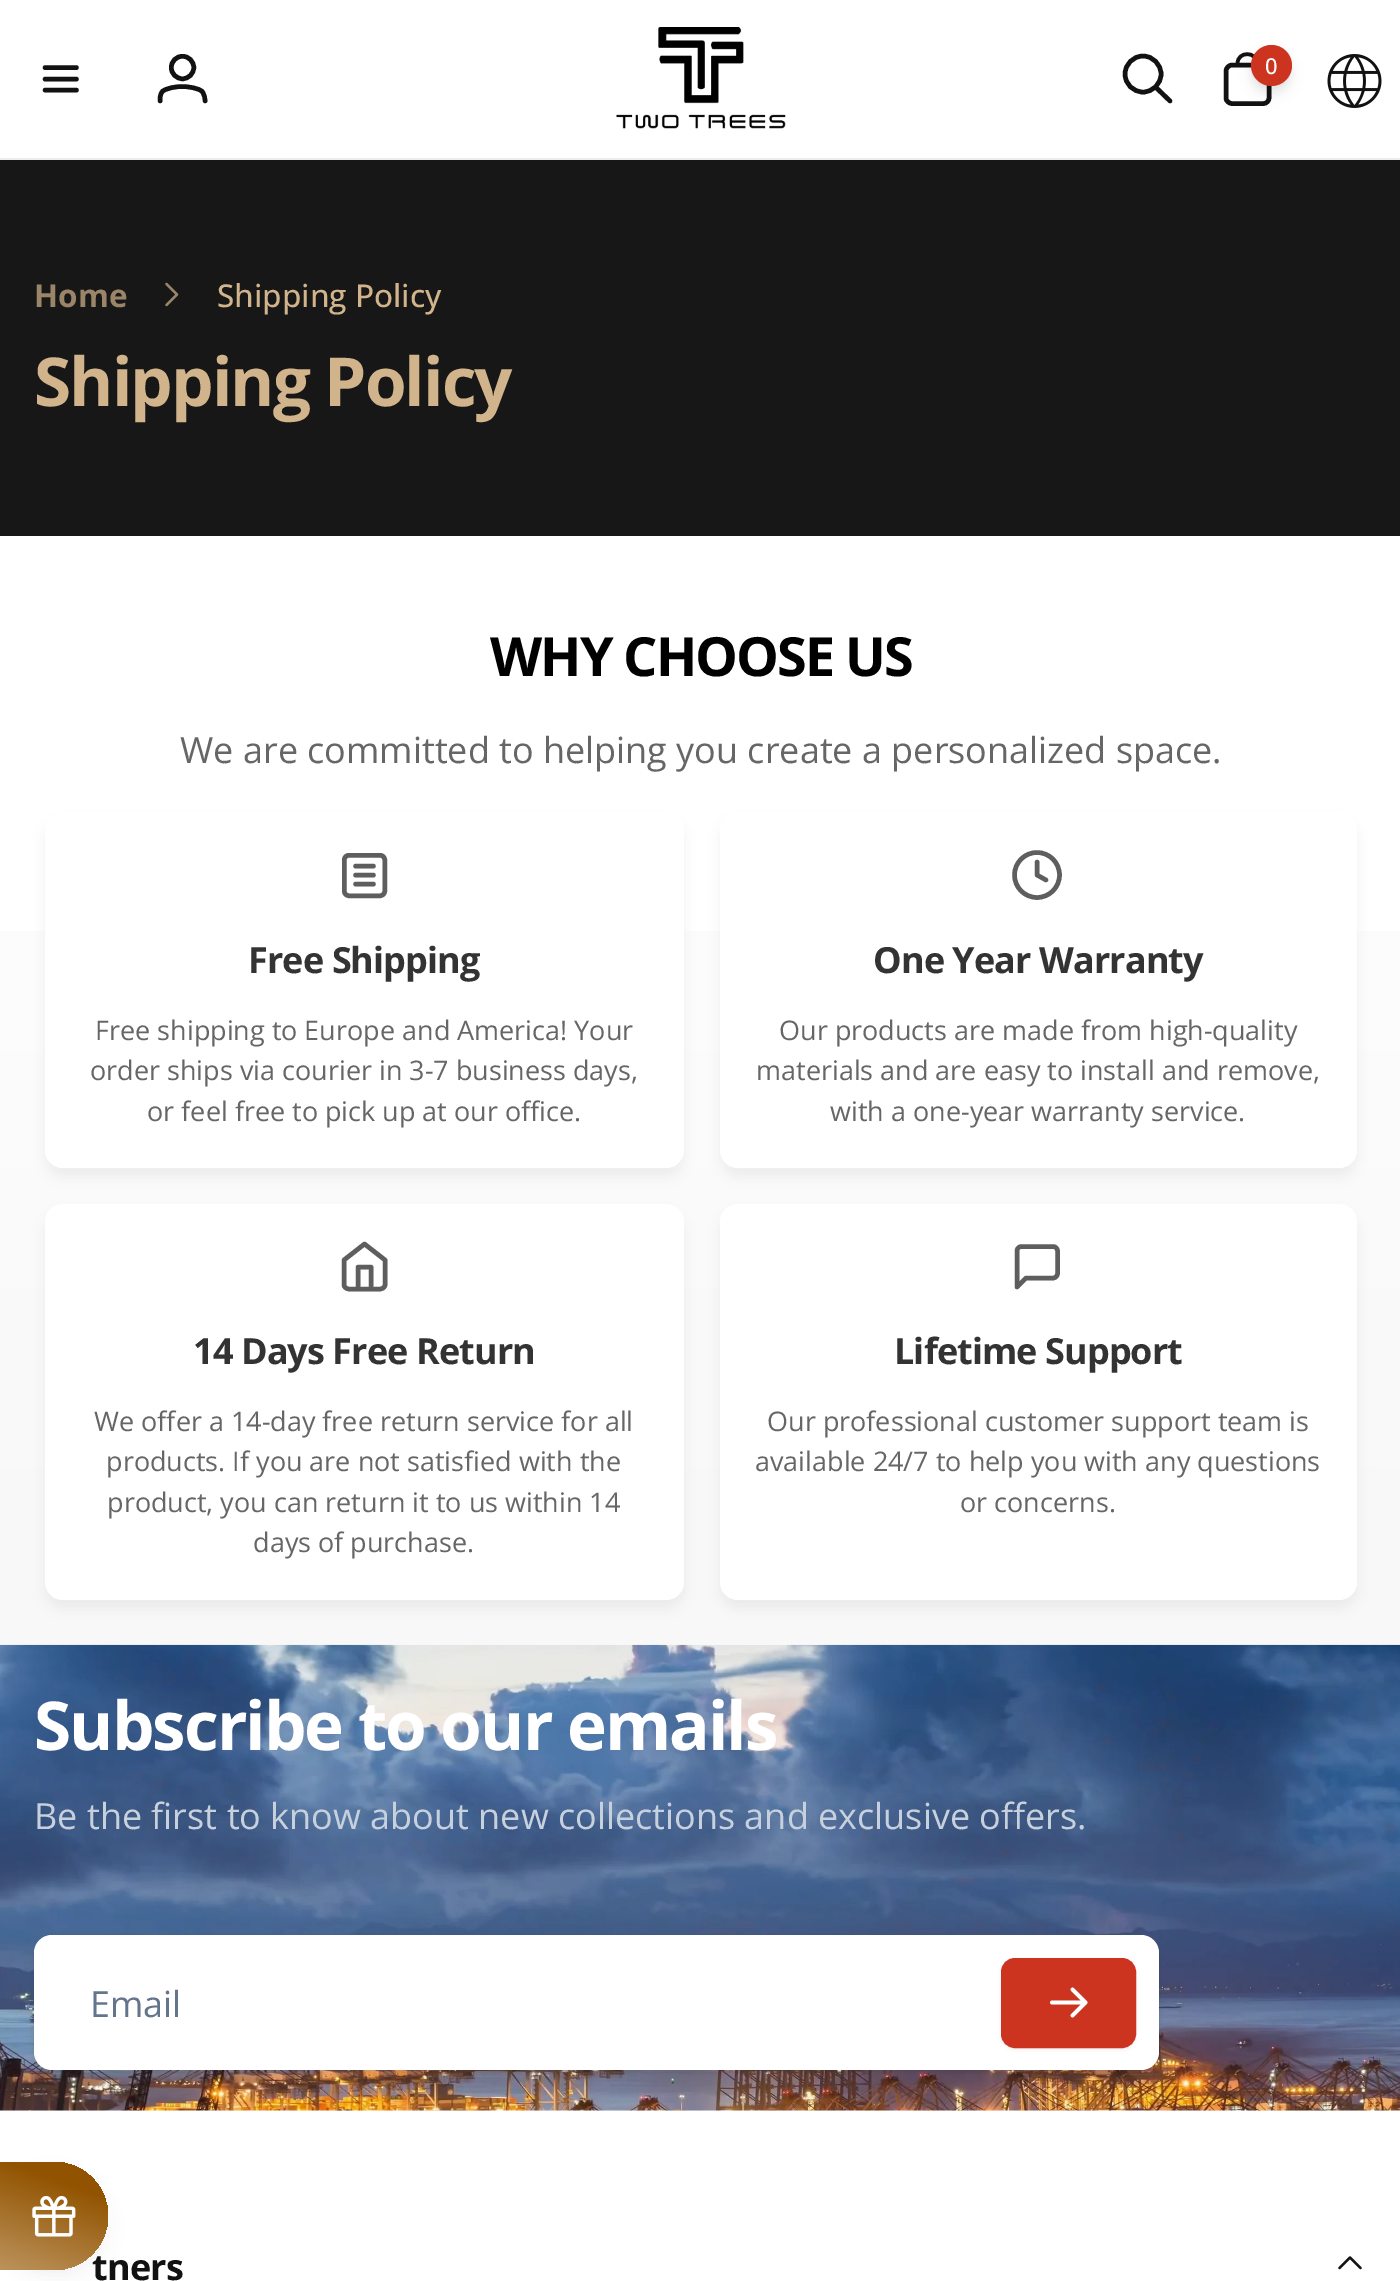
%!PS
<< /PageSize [1400 2281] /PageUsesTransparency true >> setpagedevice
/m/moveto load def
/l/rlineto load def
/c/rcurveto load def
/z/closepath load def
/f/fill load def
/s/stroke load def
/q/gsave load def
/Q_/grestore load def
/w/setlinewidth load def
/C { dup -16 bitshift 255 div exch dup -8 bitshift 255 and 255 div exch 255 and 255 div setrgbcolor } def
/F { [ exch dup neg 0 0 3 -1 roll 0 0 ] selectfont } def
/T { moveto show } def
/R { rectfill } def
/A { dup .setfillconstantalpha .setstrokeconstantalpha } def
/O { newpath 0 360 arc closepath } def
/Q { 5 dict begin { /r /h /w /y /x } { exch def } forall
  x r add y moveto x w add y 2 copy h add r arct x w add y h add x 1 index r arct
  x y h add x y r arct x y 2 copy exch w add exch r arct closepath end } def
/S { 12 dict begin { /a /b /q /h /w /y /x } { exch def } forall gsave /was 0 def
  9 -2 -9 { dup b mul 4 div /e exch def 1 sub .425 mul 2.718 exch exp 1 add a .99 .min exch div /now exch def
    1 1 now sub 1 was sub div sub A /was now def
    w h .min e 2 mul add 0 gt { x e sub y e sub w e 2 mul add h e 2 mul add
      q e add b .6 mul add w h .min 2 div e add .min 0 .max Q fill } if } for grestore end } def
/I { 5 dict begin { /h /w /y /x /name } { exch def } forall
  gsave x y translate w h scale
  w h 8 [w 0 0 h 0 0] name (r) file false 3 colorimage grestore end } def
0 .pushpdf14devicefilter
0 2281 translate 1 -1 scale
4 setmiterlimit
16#FFFFFF C
0 0 1400 2281 R
16#ECECEC C
0 158 1400 2 R
16#121212 C
4.5 w
1 setlinecap
45 67.5 m 31.5 0 l 45 79 m 31.5 0 l 45 90 m 31.5 0 l s
0 setlinecap
182.5 67.5 11.25 O s
1 setlinecap
182 86.5 m 5.5 0 17.5 1.5 20.5 5.5 c 2 3 2.5 6 2.5 9 c 182 86.5 m -5 0 -17 1.5 -20 5.5 c -2 3 -2 6 -2 9 c s
(1.rgb) 616 27 170 102 I
1 setlinejoin
1170 101 m -14.5 -14 l 1143 92 m 10 0 18 -8 18 -18 c 0 -9.5 -8 -18 -18 -18 c -10 0 -18 8.5 -18 18 c 0 10 8 18 18 18 c z s
0 setlinecap
0 setlinejoin
1263.5 65 m -31.5 0 l -3 0 -6 3 -6 6 c 0 27 l 0 3 3 5.5 6 5.5 c 31.5 0 l 3 0 5.5 -2.5 5.5 -5.5 c 0 -27 l 0 -3 -2.5 -6 -5.5 -6 c z s
3.6 w
1 setlinecap
1 setlinejoin
1237.5 63.5 m 0 -12.5 19.5 -12.5 19.5 0 c s
1253 52 36 36 18 4.5 .06 S
1253 56 36 36 18 7 .1 S
16#CC3420 C
1271.5 65.5 20.5 O f
/OpenSans-Medium 22 F
16#FFFFFF C
(0) 1265 74 T
(2.rgb) 1327 54 55 54 I
16#171717 C
0 160 1400 376 R
/OpenSans-Bold 31.5 F
16#9A8569 C
(Home) 34 307 T
2.2 w
166.5 284 m 10.5 10.5 l -10.5 10.5 l s
/OpenSans-Medium 31.5 F
16#D2B48C C
(Shipping Policy) 217 307 T
/OpenSans-Bold 67.5 F
34 406 m -2 0 (Shipping Policy) ashow
q 0 931 m 1400 0 l 0 714 l -1400 0 l z clip newpath
<< /ShadingType 2 /ColorSpace /DeviceRGB /Coords [701 535 701 1645] /Extend [true true] /Function << /FunctionType 2 /Domain [0 1] /C0 [1 1 1] /C1 [.973 .973 .973] /N 1 >> >> shfill Q_
/OpenSans-Bold 54 F
16#000000 C
490 676 m -2 0 (WHY CHOOSE US) ashow
/OpenSans-Regular 36 F
16#666666 C
(We are committed to helping you create a personalized space.) 180 763 T
16#000000 C
45 821 639 356 18 7 .05 S
16#FFFFFF C
45 812 639 356 18 Q f
16#5E5E5E C
4.5 w
0 setlinecap
0 setlinejoin
344.25 855.25 40.5 40.5 4.75 Q s
1 setlinecap
1 setlinejoin
373.5 866 m -18 0 l 373.5 875 m -18 0 l 373.5 884 m -18 0 l s
/OpenSans-Bold 36 F
16#333333 C
248 973 m -.9 0 (Free Shipping) ashow
/OpenSans-Regular 27 F
16#666666 C
(Free shipping to Europe and America! Your) 95 1040 T
(order ships via courier in 3-7 business days,) 90 1080 T
(or feel free to pick up at our office.) 147 1121 T
16#000000 C
720 821 637 356 18 7 .05 S
16#FFFFFF C
720 812 637 356 18 Q f
16#5E5E5E C
0 setlinecap
0 setlinejoin
1037 875 22.5 O s
1 setlinecap
1 setlinejoin
1037 862 m 0 13 l 9 5 l s
/OpenSans-Bold 36 F
16#333333 C
873 973 m -.9 0 (One Year Warranty) ashow
/OpenSans-Regular 27 F
16#666666 C
(Our products are made from high-quality) 779 1040 T
(materials and are easy to install and remove,) 756 1080 T
(with a one-year warranty service.) 830 1121 T
16#000000 C
45 1213 639 396 18 7 .05 S
16#FFFFFF C
45 1204 639 396 18 Q f
16#5E5E5E C
344 1260 m 20.5 -16 l 20.5 16 l 0 25 l 0 2 -2.5 4 -5 4 c -31 0 l -2.5 0 -5 -2 -5 -4 c z 358 1289 m 0 -22 l 13 0 l 0 22 l s
/OpenSans-Bold 36 F
16#333333 C
193 1364 m -.9 0 (14 Days Free Return) ashow
/OpenSans-Regular 27 F
16#666666 C
(We offer a 14-day free return service for all) 94 1431 T
(products. If you are not satisfied with the) 106 1471 T
(product, you can return it to us within 14) 107 1512 T
(days of purchase.) 253 1552 T
16#000000 C
720 1213 637 396 18 7 .05 S
16#FFFFFF C
720 1204 637 396 18 Q f
16#5E5E5E C
1057.5 1273.5 m 0 2.5 -2 4.5 -4.5 4.5 c -27 0 l -9 9 l 0 -36 l 0 -2.5 2 -4.5 4.5 -4.5 c 31.5 0 l 2.5 0 4.5 2 4.5 4.5 c z s
/OpenSans-Bold 36 F
16#333333 C
894 1364 m -.9 0 (Lifetime Support) ashow
/OpenSans-Regular 27 F
16#666666 C
(Our professional customer support team is) 767 1431 T
(available 24/7 to help you with any questions) 755 1471 T
(or concerns.) 960 1512 T
16#FAFAFA C
0 2110 1400 1 R
(3.rgb) 0 1644 1400 467 I
/OpenSans-Bold 67.5 F
16#FFFFFF C
34 1750 m -2 0 (Subscribe to our emails) ashow
/OpenSans-Regular 36 F
16#C7D0DD C
(Be the first to know about new collections and exclusive offers.) 34 1829 T
16#121212 C
34 1937 1125 135 18 3.5 .1 S
34 1937 1125 135 18 2 .06 S
16#FFFFFF C
34 1935 1125 135 18 Q f
16#64748B C
(Email) 90 2017 T
16#121212 C
1001 1960 135 90 14 2 .05 S
16#CC3420 C
1002 1959 133 88 13 Q q f Q_
2 w
0 setlinecap
0 setlinejoin
s
16#FFFFFF C
3.8 w
1 setlinecap
1 setlinejoin
1072.5 1989.5 m 13 13 l 1085.5 2002.5 m -13 13 l 1085.5 2002.5 m -33.5 0 l s
16#444444 C
5 2176 99 99 49.5 9 .08 S
/OpenSans-Bold 36 F
16#121212 C
92 2280 m -.75 0 (tners) ashow
q 108 2216 m 0 30 -24 54 -54 54 c -54 0 l 0 -108 l 54 0 l 30 0 54 24 54 54 c z clip newpath
<< /ShadingType 2 /ColorSpace /DeviceRGB /Coords [77 2151 12 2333] /Extend [true true] /Function << /FunctionType 3 /Domain [0 1] /Functions [<< /FunctionType 2 /Domain [0 1] /C0 [.569 .325 0] /C1 [.569 .325 0] /N 1 >> << /FunctionType 2 /Domain [0 1] /C0 [.569 .325 0] /C1 [.824 .706 .549] /N 1 >>] /Bounds [.17] /Encode [0 1 0 1] >> >> shfill Q_
(4.rgb) 32 2196 44 41 I
2.2 w
1339.5 2268 m 10.5 -10.5 l 10.5 10.5 l s
.poppdf14devicefilter showpage
